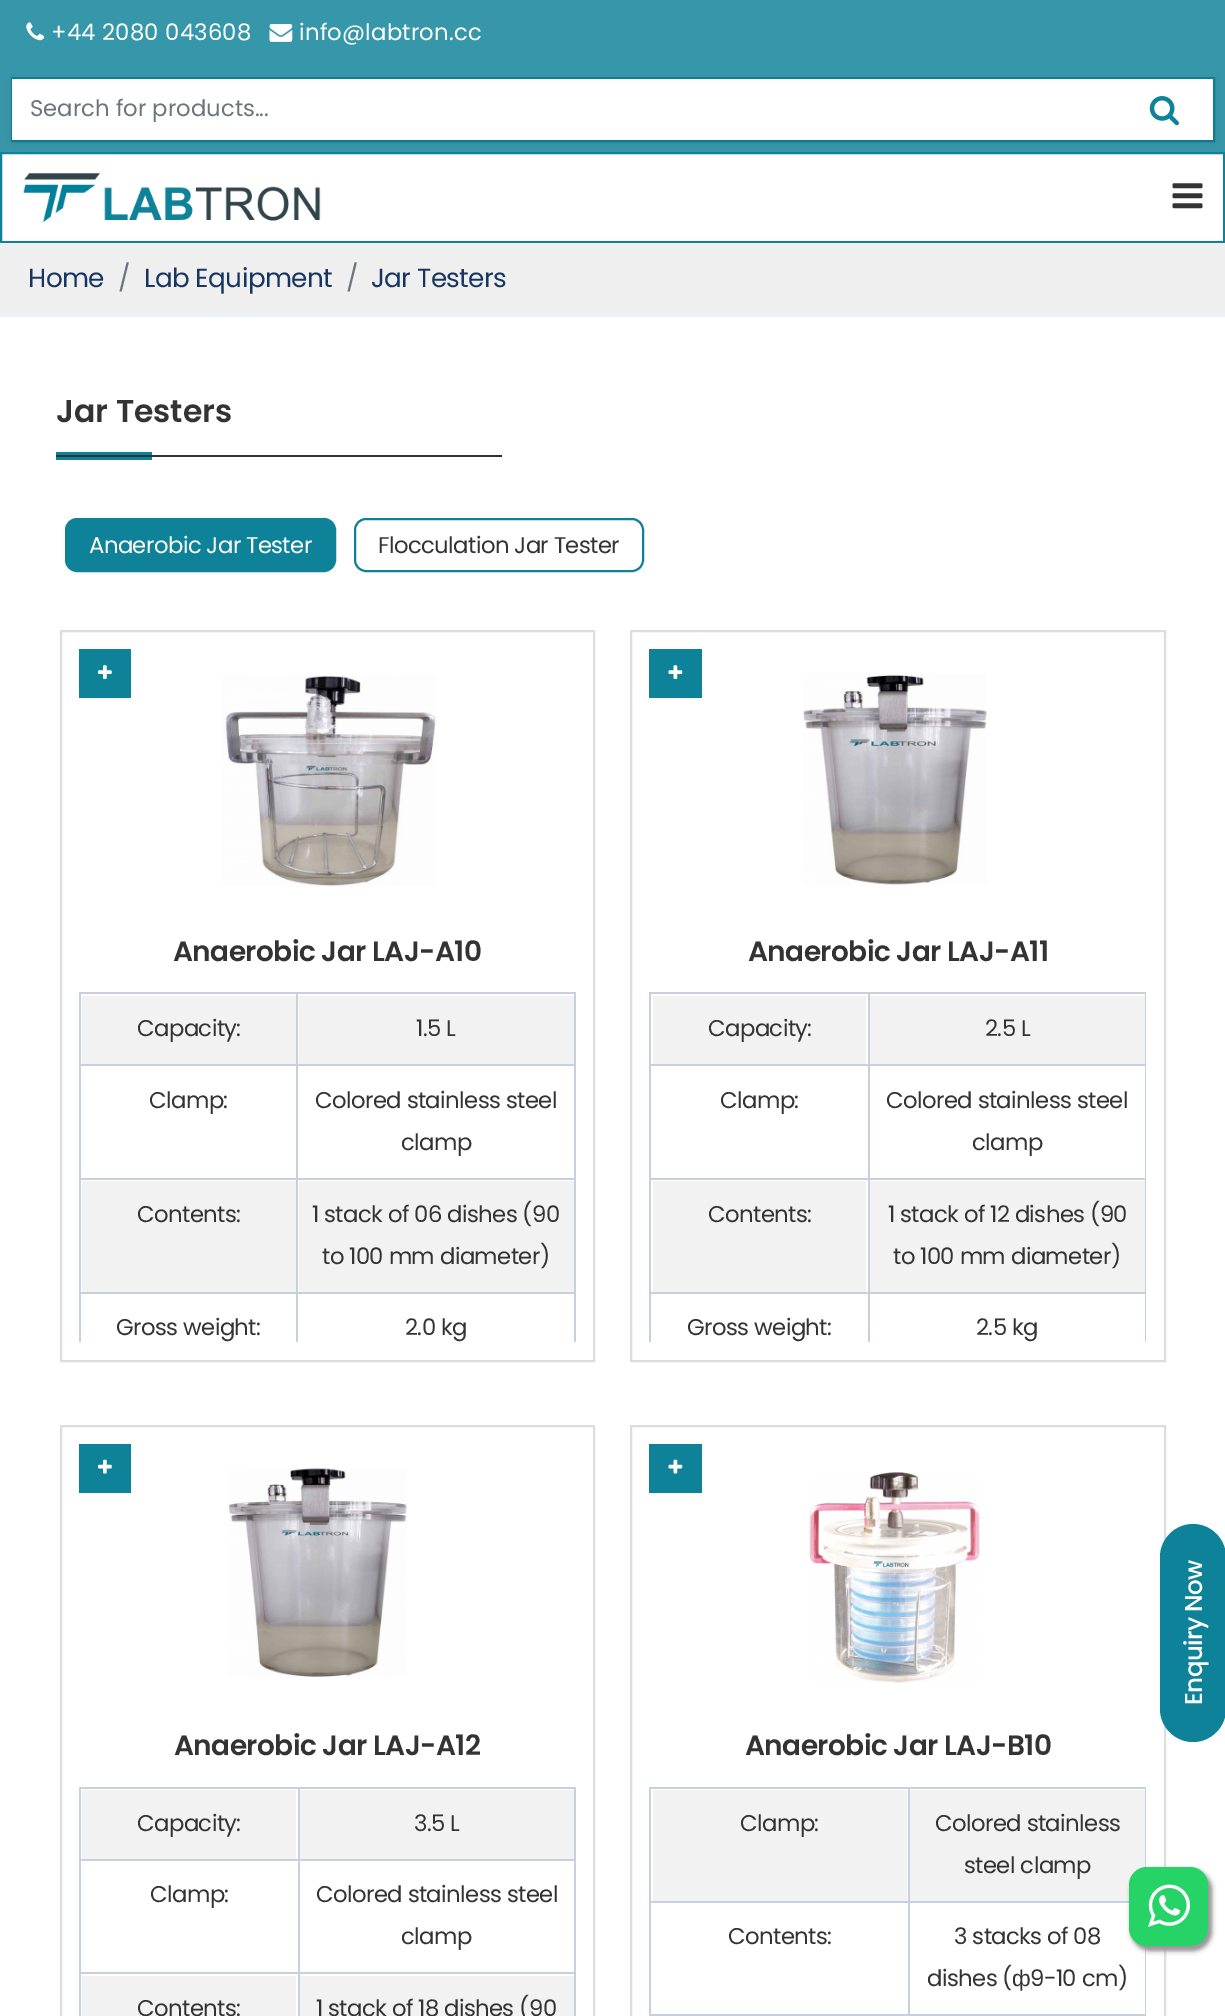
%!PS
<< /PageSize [1225 2016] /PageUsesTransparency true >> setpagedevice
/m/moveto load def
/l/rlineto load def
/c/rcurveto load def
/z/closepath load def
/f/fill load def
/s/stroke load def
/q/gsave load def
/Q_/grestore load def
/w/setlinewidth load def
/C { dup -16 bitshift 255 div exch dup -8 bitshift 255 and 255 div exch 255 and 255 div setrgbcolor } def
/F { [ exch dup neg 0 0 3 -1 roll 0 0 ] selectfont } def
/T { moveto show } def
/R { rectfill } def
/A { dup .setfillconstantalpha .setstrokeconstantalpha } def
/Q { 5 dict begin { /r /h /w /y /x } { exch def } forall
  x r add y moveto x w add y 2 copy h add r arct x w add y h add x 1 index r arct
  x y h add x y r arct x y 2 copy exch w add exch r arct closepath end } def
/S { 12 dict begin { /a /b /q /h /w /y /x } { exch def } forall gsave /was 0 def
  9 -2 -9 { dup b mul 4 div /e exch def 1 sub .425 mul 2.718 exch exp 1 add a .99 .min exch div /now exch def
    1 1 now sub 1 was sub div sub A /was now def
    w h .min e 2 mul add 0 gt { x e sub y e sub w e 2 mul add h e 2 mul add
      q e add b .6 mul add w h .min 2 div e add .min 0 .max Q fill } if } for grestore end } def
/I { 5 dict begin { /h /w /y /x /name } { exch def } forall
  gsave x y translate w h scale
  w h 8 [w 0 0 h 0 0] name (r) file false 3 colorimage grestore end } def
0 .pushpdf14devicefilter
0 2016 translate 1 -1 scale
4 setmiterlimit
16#FFFFFF C
0 0 1225 2016 R
16#3797AA C
0 0 1225 152 R
(1.rgb) 26 22 19 19 I
/Poppins-Regular 22.75 F
16#FFFFFF C
51 40 m .2 0 (+44 2080 043608) ashow
(2.rgb) 269 24 24 18 I
299 40 m .2 0 (info@labtron.cc) ashow
16#0E8299 C
2 w
12 78 1202 63 rectstroke
1 153 1223 89 rectstroke
16#000000 C
12 81 1201 61 0 4.5 .1 S
16#FFFFFF C
12 79 1201 61 R
16#6C757D C
(Search for products...) 30 116 T
(3.rgb) 1149 96 30 30 I
(4.rgb) 23 173 298 50 I
(5.rgb) 1172 183 31 26 I
16#EFEFEF C
0 243 1225 70 R
16#EDF0F9 C
0 313 1225 4 R
/Poppins-Regular 26.25 F
16#163661 C
28 287 m -.6 0 (Home) ashow
16#6C757D C
118 287 m -.6 0 (/) ashow
16#163661 C
144 287 m -.6 0 (Lab Equipment) ashow
16#6C757D C
346 287 m -.6 0 (/) ashow
16#163661 C
371 287 m -.6 0 (Jar Testers) ashow
/Poppins-SemiBold 31.5 F
16#333333 C
(Jar Testers) 56 422 T
16#0E8299 C
56 452 96 8 R
16#333333 C
56 455 446 2 R
16#0E8299 C
66 519 269 52 11 Q q f Q_
s
/Poppins-Regular 22.75 F
16#FFFFFF C
89 553 m -.6 0 (Anaerobic Jar Tester) ashow
16#0E8299 C
355 519 288 52 11 Q s
16#333333 C
378 553 m -.6 0 (Flocculation Jar Tester) ashow
16#DDDDDD C
61 631 533 730 rectstroke
16#0E8299 C
79 649 52 49 R
(6.rgb) 98 665 14 14 I
(7.rgb) 221 675 215 212 I
/Poppins-SemiBold 28 F
16#333333 C
173 961 m -.6 0 (Anaerobic Jar LAJ-A10) ashow
16#C6D1DD C
79 992 497 2 R
574 992 2 350 R
79 992 2 350 R
16#F2F2F2 C
82 996 214 68 R
/Poppins-Regular 22.75 F
16#333333 C
137 1036 m -.6 0 (Capacity:) ashow
16#F2F2F2 C
299 996 275 68 R
16#333333 C
416 1036 m -.6 0 (1.5 L) ashow
16#C6D1DD C
79 1064 497 2 R
16#333333 C
149 1108 m -.6 0 (Clamp:) ashow
315 1108 m -.6 0 (Colored stainless steel) ashow
401 1150 m -.6 0 (clamp) ashow
16#C6D1DD C
79 1178 497 2 R
16#F2F2F2 C
82 1181 214 111 R
16#333333 C
137 1222 m -.6 0 (Contents:) ashow
16#F2F2F2 C
299 1181 275 111 R
16#333333 C
312 1222 m -.6 0 (1 stack of 06 dishes \(90) ashow
322 1264 m -.6 0 (to 100 mm diameter\)) ashow
16#C6D1DD C
79 1292 497 2 R
16#333333 C
116 1335 m -.6 0 (Gross weight:) ashow
16#C6D1DD C
296 992 2 350 R
16#333333 C
405 1335 m -.6 0 (2.0 kg) ashow
16#DDDDDD C
631 631 534 730 rectstroke
16#0E8299 C
649 649 53 49 R
(8.rgb) 668 665 15 14 I
(9.rgb) 803 673 184 212 I
/Poppins-SemiBold 28 F
16#333333 C
748 961 m -.6 0 (Anaerobic Jar LAJ-A11) ashow
16#C6D1DD C
649 992 497 2 R
1145 992 1 350 R
649 992 2 350 R
16#F2F2F2 C
653 996 213 68 R
/Poppins-Regular 22.75 F
16#333333 C
708 1036 m -.6 0 (Capacity:) ashow
16#F2F2F2 C
870 996 275 68 R
16#333333 C
985 1036 m -.6 0 (2.5 L) ashow
16#C6D1DD C
649 1064 497 2 R
16#333333 C
720 1108 m -.6 0 (Clamp:) ashow
886 1108 m -.6 0 (Colored stainless steel) ashow
972 1150 m -.6 0 (clamp) ashow
16#C6D1DD C
649 1178 497 2 R
16#F2F2F2 C
653 1181 213 111 R
16#333333 C
708 1222 m -.6 0 (Contents:) ashow
16#F2F2F2 C
870 1181 275 111 R
16#333333 C
888 1222 m -.6 0 (1 stack of 12 dishes \(90) ashow
893 1264 m -.6 0 (to 100 mm diameter\)) ashow
16#C6D1DD C
649 1292 497 2 R
16#333333 C
687 1335 m -.6 0 (Gross weight:) ashow
16#C6D1DD C
868 992 2 350 R
16#333333 C
976 1335 m -.6 0 (2.5 kg) ashow
16#DDDDDD C
61 1426 533 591 rectstroke
16#0E8299 C
79 1444 52 49 R
(10.rgb) 98 1459 14 15 I
(11.rgb) 228 1468 179 209 I
/Poppins-SemiBold 28 F
16#333333 C
174 1755 m -.6 0 (Anaerobic Jar LAJ-A12) ashow
16#C6D1DD C
79 1787 497 2 R
574 1787 2 229 R
79 1787 2 229 R
16#F2F2F2 C
82 1790 214 69 R
/Poppins-Regular 22.75 F
16#333333 C
137 1831 m -.6 0 (Capacity:) ashow
16#F2F2F2 C
300 1790 274 69 R
16#333333 C
414 1831 m -.6 0 (3.5 L) ashow
16#C6D1DD C
79 1859 497 2 R
16#333333 C
150 1902 m -.6 0 (Clamp:) ashow
316 1902 m -.6 0 (Colored stainless steel) ashow
401 1944 m -.6 0 (clamp) ashow
16#C6D1DD C
79 1972 497 2 R
16#F2F2F2 C
82 1976 214 40 R
16#333333 C
137 2016 m -.6 0 (Contents:) ashow
16#F2F2F2 C
300 1976 274 40 R
16#C6D1DD C
298 1787 2 229 R
16#333333 C
316 2016 m -.6 0 (1 stack of 18 dishes \(90) ashow
16#DDDDDD C
631 1426 534 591 rectstroke
16#0E8299 C
649 1444 53 49 R
(12.rgb) 668 1459 15 15 I
(13.rgb) 809 1472 171 211 I
/Poppins-SemiBold 28 F
16#333333 C
745 1755 m -.6 0 (Anaerobic Jar LAJ-B10) ashow
16#C6D1DD C
649 1787 497 2 R
1145 1787 1 229 R
649 1787 2 229 R
16#F2F2F2 C
653 1790 254 111 R
/Poppins-Regular 22.75 F
16#333333 C
740 1831 m -.6 0 (Clamp:) ashow
16#F2F2F2 C
910 1790 235 111 R
16#333333 C
935 1831 m -.6 0 (Colored stainless) ashow
964 1873 m -.6 0 (steel clamp) ashow
16#C6D1DD C
649 1901 480 2 R
16#333333 C
728 1944 m -.6 0 (Contents:) ashow
16#C6D1DD C
649 2014 497 2 R
908 1787 2 229 R
16#333333 C
954 1944 m -.6 0 (3 stacks of 08) ashow
927 1986 m -.6 0 (dishes \() ashow
/LiberationSans-Regular 22.75 F
1012 1986 m -.6 0 (ф) ashow
/Poppins-Regular 22.75 F
1030 1986 m -.6 0 (9-10 cm\)) ashow
16#0E8299 C
1160 1709 m 0 -152 l 0 -18 15 -33 33 -33 c 18 0 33 15 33 33 c 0 152 l 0 18 -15 33 -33 33 c -18 0 -33 -15 -33 -33 c z f
/Poppins-Medium 24.5 F
16#FFFFFF C
q 1202 1705 translate -90 rotate 0 0 m -.6 0 (Enquiry Now) ashow Q_
16#999999 C
1132 1871 79 79 18 2.5 1 S
1132 1871 79 79 18 2.5 1 S
16#25D366 C
1129 1867 79 79 18 Q f
(14.rgb) 1148 1884 42 43 I
.poppdf14devicefilter showpage
